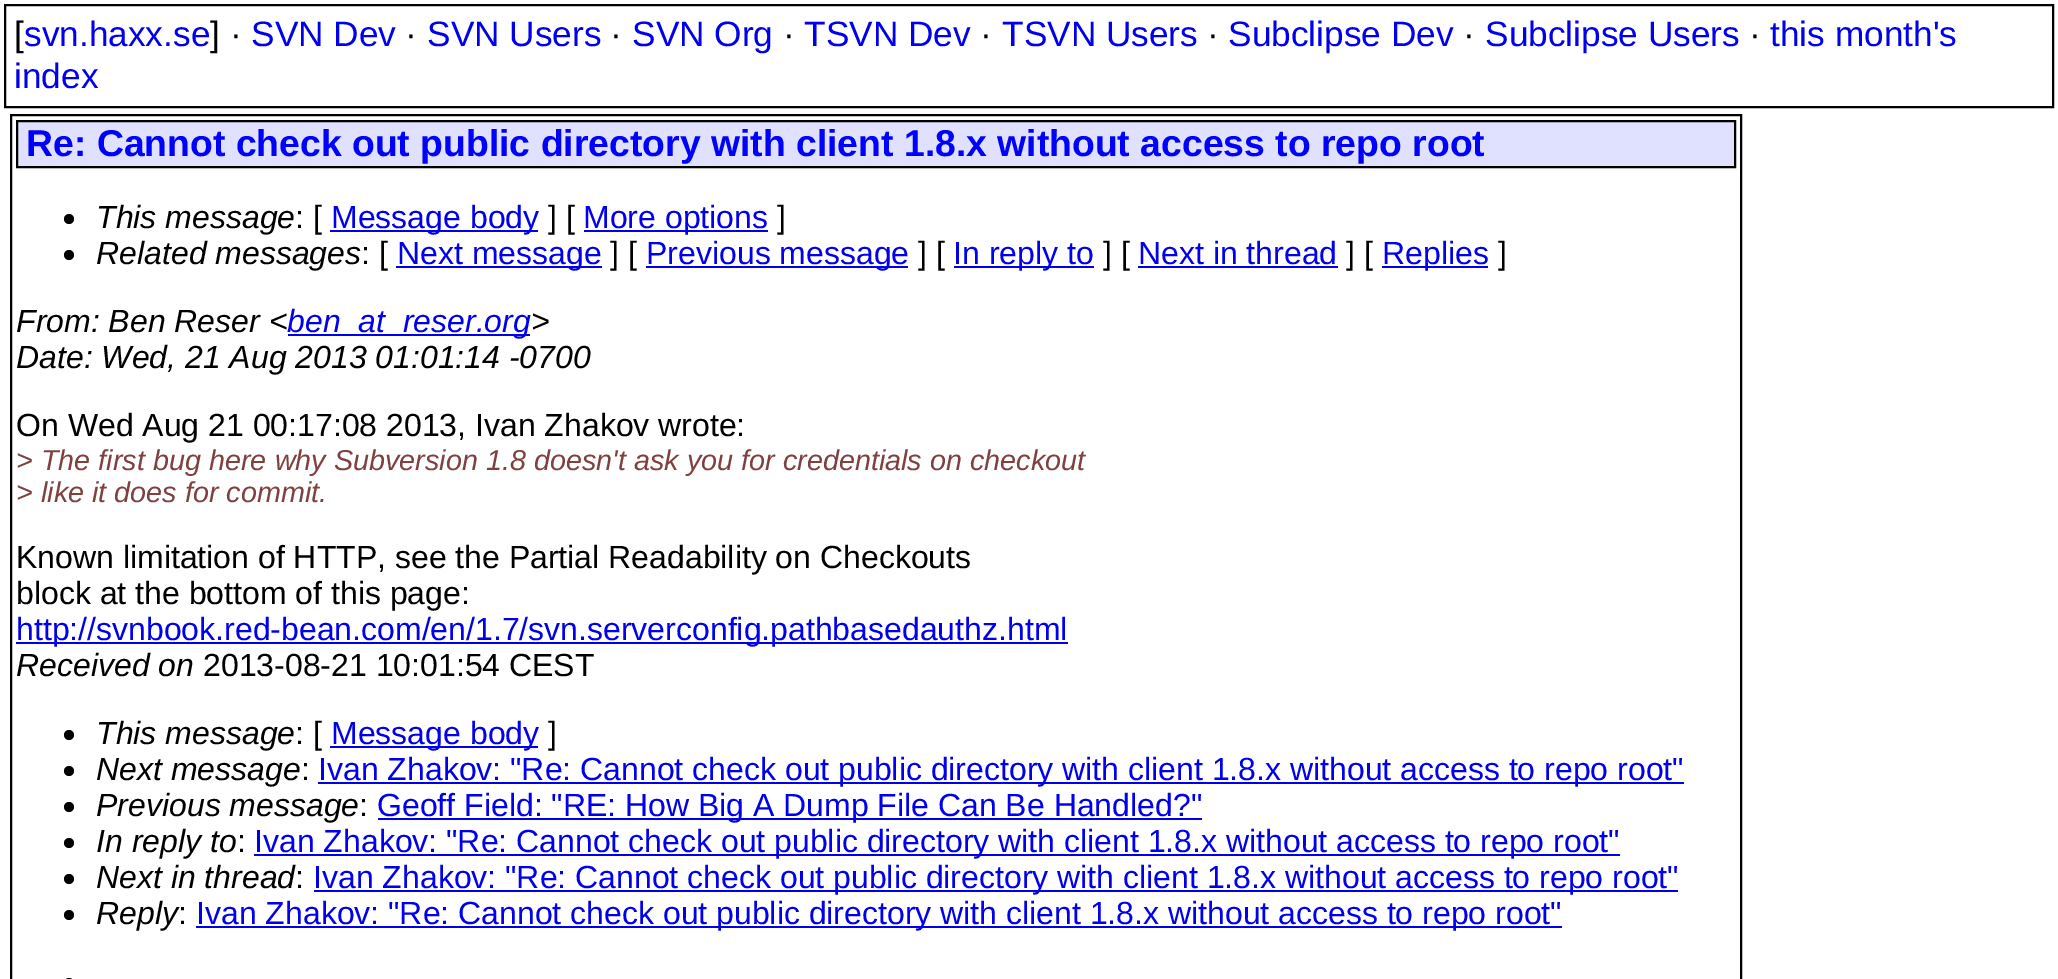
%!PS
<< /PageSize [2058 979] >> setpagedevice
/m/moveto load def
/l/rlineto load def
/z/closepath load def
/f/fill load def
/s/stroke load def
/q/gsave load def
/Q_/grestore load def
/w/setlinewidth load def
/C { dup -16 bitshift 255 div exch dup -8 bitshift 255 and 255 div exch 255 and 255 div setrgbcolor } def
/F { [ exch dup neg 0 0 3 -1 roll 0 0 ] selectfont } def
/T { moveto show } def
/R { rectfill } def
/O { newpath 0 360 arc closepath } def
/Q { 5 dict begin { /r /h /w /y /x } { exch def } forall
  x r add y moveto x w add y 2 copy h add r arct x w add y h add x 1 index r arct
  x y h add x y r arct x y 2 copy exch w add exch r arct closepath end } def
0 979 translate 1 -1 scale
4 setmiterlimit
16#FFFFFF C
0 0 2058 979 R
16#000000 C
2 w
5 5 2048 102 rectstroke
/LiberationSans-Regular 35.25 F
([) 14 46 T
16#0000EE C
(svn.haxx.se) 24 46 T
16#000000 C
(] ·) 210 46 T
16#0000EE C
(SVN Dev) 251 46 T
16#000000 C
(·) 405 46 T
16#0000EE C
(SVN Users) 427 46 T
16#000000 C
(·) 610 46 T
16#0000EE C
(SVN Org) 632 46 T
16#000000 C
(·) 783 46 T
16#0000EE C
(TSVN Dev) 804 46 T
16#000000 C
(·) 980 46 T
16#0000EE C
(TSVN Users) 1002 46 T
16#000000 C
(·) 1207 46 T
16#0000EE C
(Subclipse Dev) 1228 46 T
16#000000 C
(·) 1463 46 T
16#0000EE C
(Subclipse Users) 1485 46 T
16#000000 C
(·) 1749 46 T
16#0000EE C
(this month's) 1770 46 T
(index) 14 88 T
16#000000 C
11 115 1730 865 rectstroke
16#E0E0FF C
17 121 m 1718 0 l 0 46 l -1718 0 l z q f Q_
16#000000 C
s
/LiberationSans-Bold 37.35 F
16#0000FF C
(Re: Cannot check out public directory with client 1.8.x without access to repo root) 26 156 T
16#000000 C
69 219 5 O f
/LiberationSans-Italic 32 F
(This message) 96 228 T
/LiberationSans-Regular 32 F
(: [) 295 228 T
16#0000EE C
330 230 208 2 R
(Message body) 331 228 T
16#000000 C
(] [) 548 228 T
16#0000EE C
584 230 184 2 R
(More options) 583 228 T
16#000000 C
(]) 777 228 T
69 255 5 O f
/LiberationSans-Italic 32 F
(Related messages) 96 264 T
/LiberationSans-Regular 32 F
(: [) 361 264 T
16#0000EE C
396 266 206 2 R
(Next message) 397 264 T
16#000000 C
(] [) 610 264 T
16#0000EE C
646 266 262 2 R
(Previous message) 646 264 T
16#000000 C
(] [) 918 264 T
16#0000EE C
954 266 140 2 R
(In reply to) 953 264 T
16#000000 C
(] [) 1103 264 T
16#0000EE C
(Next in thread) 1138 264 T
1138 266 200 2 R
16#000000 C
(] [) 1346 264 T
16#0000EE C
1382 266 106 2 R
(Replies) 1382 264 T
16#000000 C
(]) 1498 264 T
/LiberationSans-Italic 32 F
(From: Ben Reser <) 16 332 T
16#0000EE C
288 334 242 2 R
(ben_at_reser.org) 287 332 T
16#000000 C
(>) 531 332 T
(Date: Wed, 21 Aug 2013 01:01:14 -0700) 16 368 T
/LiberationSans-Regular 32 F
(On Wed Aug 21 00:17:08 2013, Ivan Zhakov wrote:) 16 436 T
/LiberationSans-Italic 28.8 F
16#804040 C
(> The first bug here why Subversion 1.8 doesn't ask you for credentials on checkout) 16 470 T
(> like it does for commit.) 16 502 T
/LiberationSans-Regular 32 F
16#000000 C
(Known limitation of HTTP, see the Partial Readability on Checkouts) 16 568 T
(block at the bottom of this page:) 16 604 T
16#0000EE C
16 642 1052 2 R
(http://svnbook.red-bean.com/en/1.7/svn.serverconfig.pathbasedauthz.html) 16 640 T
/LiberationSans-Italic 32 F
16#000000 C
(Received on) 16 676 T
/LiberationSans-Regular 32 F
(2013-08-21 10:01:54 CEST) 203 676 T
69 735 5 O f
/LiberationSans-Italic 32 F
(This message) 96 744 T
/LiberationSans-Regular 32 F
(: [) 295 744 T
16#0000EE C
330 746 208 2 R
(Message body) 331 744 T
16#000000 C
(]) 548 744 T
69 771 5 O f
/LiberationSans-Italic 32 F
(Next message) 96 780 T
/LiberationSans-Regular 32 F
(:) 301 780 T
16#0000EE C
318 782 1366 2 R
(Ivan Zhakov: "Re: Cannot check out public directory with client 1.8.x without access to repo root") 318 780 T
16#000000 C
69 807 5 O f
/LiberationSans-Italic 32 F
(Previous message) 96 816 T
/LiberationSans-Regular 32 F
(:) 359 816 T
16#0000EE C
378 818 824 2 R
(Geoff Field: "RE: How Big A Dump File Can Be Handled?") 377 816 T
16#000000 C
69 843 5 O f
/LiberationSans-Italic 32 F
(In reply to) 96 852 T
/LiberationSans-Regular 32 F
(:) 237 852 T
16#0000EE C
254 854 1366 2 R
(Ivan Zhakov: "Re: Cannot check out public directory with client 1.8.x without access to repo root") 254 852 T
16#000000 C
69 879 5 O f
/LiberationSans-Italic 32 F
(Next in thread) 96 888 T
/LiberationSans-Regular 32 F
(:) 295 888 T
16#0000EE C
314 890 1364 2 R
(Ivan Zhakov: "Re: Cannot check out public directory with client 1.8.x without access to repo root") 313 888 T
16#000000 C
69 915 5 O f
/LiberationSans-Italic 32 F
(Reply) 96 924 T
/LiberationSans-Regular 32 F
(:) 178 924 T
16#0000EE C
196 926 1366 2 R
(Ivan Zhakov: "Re: Cannot check out public directory with client 1.8.x without access to repo root") 196 924 T
16#000000 C
64 978 10 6 5 Q f
showpage
